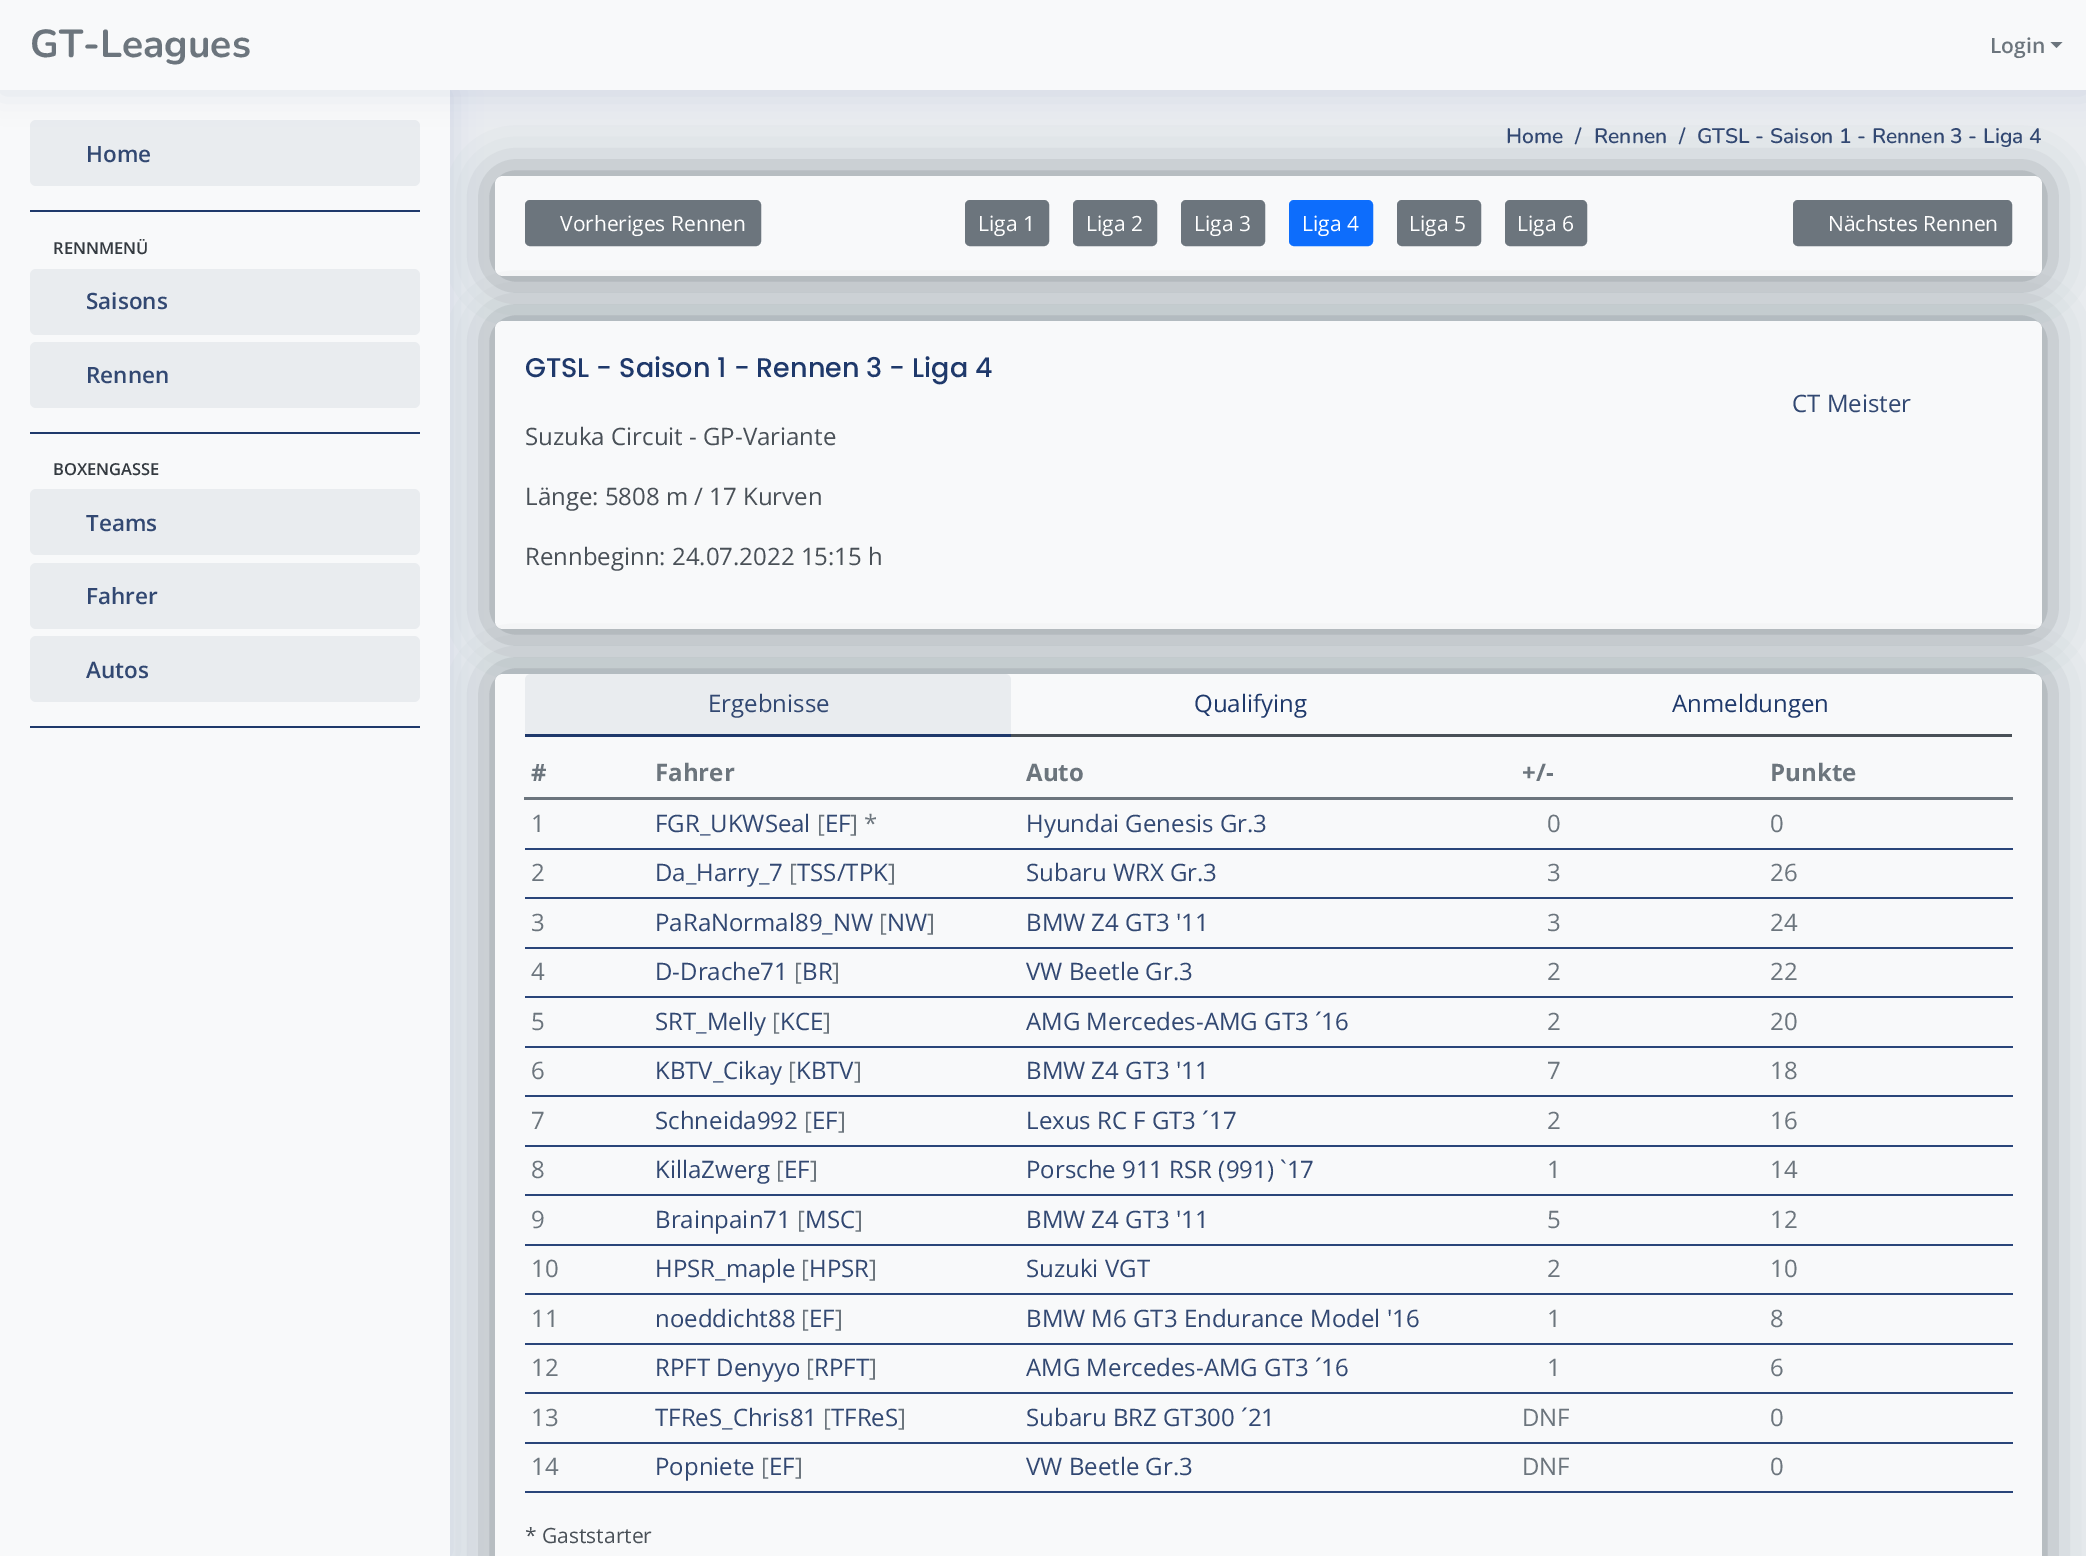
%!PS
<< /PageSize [2086 1556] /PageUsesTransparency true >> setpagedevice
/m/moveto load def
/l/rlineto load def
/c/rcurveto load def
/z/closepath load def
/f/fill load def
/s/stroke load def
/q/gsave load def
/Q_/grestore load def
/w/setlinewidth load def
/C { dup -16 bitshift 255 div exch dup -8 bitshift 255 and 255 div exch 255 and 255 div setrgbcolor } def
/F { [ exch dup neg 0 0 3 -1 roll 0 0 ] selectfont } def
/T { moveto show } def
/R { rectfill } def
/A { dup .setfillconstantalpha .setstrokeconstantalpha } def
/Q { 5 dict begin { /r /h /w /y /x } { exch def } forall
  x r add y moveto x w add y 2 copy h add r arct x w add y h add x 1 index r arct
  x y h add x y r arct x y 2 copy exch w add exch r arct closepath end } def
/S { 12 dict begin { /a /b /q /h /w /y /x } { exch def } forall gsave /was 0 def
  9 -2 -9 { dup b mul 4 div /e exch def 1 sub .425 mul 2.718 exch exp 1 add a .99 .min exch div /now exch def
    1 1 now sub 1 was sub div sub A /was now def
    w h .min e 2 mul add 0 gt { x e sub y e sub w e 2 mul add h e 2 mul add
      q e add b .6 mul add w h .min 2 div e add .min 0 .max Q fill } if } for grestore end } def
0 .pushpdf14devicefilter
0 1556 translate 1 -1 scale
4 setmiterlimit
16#E9ECEF C
0 0 2086 1556 R
16#000F16 C
495 176 1547 100 8 22.5 .43 S
16#F8F9FA C
495 176 1547 100 8 Q f
16#000F16 C
495 321 1547 308 8 22.5 .43 S
16#F8F9FA C
495 321 1547 308 8 Q f
16#000F16 C
495 674 1547 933 8 22.5 .43 S
16#F8F9FA C
495 674 1547 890 8 Q f
16#012970 C
0 90 450 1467 0 15 .1 S
16#F8F9FA C
0 90 450 1466 R
16#E9ECEF C
30 120 390 66 6 Q f
16#012970 C
0 3 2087 90 0 15 .1 S
16#F8F9FA C
0 0 2086 90 R
/Nunito-Bold 39 F
16#6C757D C
(GT-Leagues) 30 57 T
/OpenSans-SemiBold 21 F
(Login) 1990 53 T
2050.5 42 m 12 0 l -6 6 l z f
/OpenSans-SemiBold 22.5 F
16#324872 C
(Home) 86 162 T
16#1F396B C
30 210 390 2 R
/OpenSans-SemiBold 16.5 F
16#343A40 C
(RENNMENÜ) 53 254 T
16#E9ECEF C
30 269 390 66 6 Q f
/OpenSans-SemiBold 22.5 F
16#324872 C
(Saisons) 86 309 T
16#E9ECEF C
30 342 390 66 6 Q f
16#324872 C
(Rennen) 86 383 T
16#1F396B C
30 432 390 2 R
/OpenSans-SemiBold 16.5 F
16#343A40 C
(BOXENGASSE) 53 475 T
16#E9ECEF C
30 489 390 66 6 Q f
/OpenSans-SemiBold 22.5 F
16#324872 C
(Teams) 86 531 T
16#E9ECEF C
30 563 390 66 6 Q f
16#324872 C
(Fahrer) 86 604 T
16#E9ECEF C
30 636 390 66 6 Q f
16#324872 C
(Autos) 86 678 T
16#1F396B C
30 726 390 2 R
/Nunito-SemiBold 21 F
16#324872 C
(Home) 1506 143 T
(/) 1575 143 T
(Rennen) 1594 143 T
(/) 1679 143 T
(GTSL - Saison 1 - Rennen 3 - Liga 4) 1697 143 T
16#6C757D C
526 201 234 44 4 Q q f Q_
2 w
s
/OpenSans-Regular 21 F
16#FFFFFF C
(Vorheriges Rennen) 560 231 T
16#6C757D C
966 201 82 44 4 Q q f Q_
s
16#FFFFFF C
(Liga 1) 978 231 T
16#6C757D C
1074 201 82 44 4 Q q f Q_
s
16#FFFFFF C
(Liga 2) 1086 231 T
16#6C757D C
1182 201 82 44 4 Q q f Q_
s
16#FFFFFF C
(Liga 3) 1194 231 T
16#0D6DFC C
1290 201 82 44 4 Q q f Q_
16#0D6EFD C
s
16#FFFFFF C
(Liga 4) 1302 231 T
16#6C757D C
1398 201 82 44 4 Q q f Q_
s
16#FFFFFF C
(Liga 5) 1409 231 T
16#6C757D C
1506 201 80 44 4 Q q f Q_
s
16#FFFFFF C
(Liga 6) 1517 231 T
16#6C757D C
1794 201 217 44 4 Q q f Q_
s
16#FFFFFF C
(Nächstes Rennen) 1828 231 T
/Poppins-Medium 27 F
16#1F396B C
(GTSL - Saison 1 - Rennen 3 - Liga 4) 525 377 T
/OpenSans-Regular 24 F
16#495057 C
(Suzuka Circuit - GP-Variante) 525 445 T
(Länge: 5808 m / 17 Kurven) 525 505 T
(Rennbeginn: 24.07.2022 15:15 h) 525 565 T
16#324872 C
(CT Meister) 1792 412 T
16#495057 C
1011 734 1001 3 R
16#E9ECEF C
531 674 m 474 0 l 3.5 0 6 2.5 6 6 c 0 57 l -486 0 l 0 -57 l 0 -3.5 2.5 -6 6 -6 c z f
16#1F396B C
525 734 486 3 R
16#324872 C
(Ergebnisse) 708 712 T
16#1F396B C
(Qualifying) 1194 712 T
(Anmeldungen) 1672 712 T
/OpenSans-Bold 24 F
16#6C757D C
(#) 531 781 T
(Fahrer) 655 781 T
(Auto) 1026 781 T
(+/-) 1522 781 T
(Punkte) 1770 781 T
524 797 1489 3 R
/OpenSans-Regular 24 F
(1) 531 832 T
16#324872 C
(FGR_UKWSeal) 655 832 T
16#6C757D C
([) 817 832 T
16#324872 C
(EF) 825 832 T
16#6C757D C
(] *) 850 832 T
16#324872 C
(Hyundai Genesis Gr.3) 1026 832 T
16#6C757D C
(0) 1547 832 T
16#2A457A C
525 848 1488 2 R
16#6C757D C
(0) 1770 832 T
(2) 531 881 T
16#324872 C
(Da_Harry_7) 655 881 T
16#6C757D C
([) 789 881 T
16#324872 C
(TSS/TPK) 797 881 T
16#6C757D C
(]) 888 881 T
16#324872 C
(Subaru WRX Gr.3) 1026 881 T
16#6C757D C
(3) 1547 881 T
16#2A457A C
525 897 1488 2 R
16#6C757D C
(26) 1770 881 T
(3) 531 931 T
16#324872 C
(PaRaNormal89_NW) 655 931 T
16#6C757D C
([) 879 931 T
16#324872 C
(NW) 887 931 T
16#6C757D C
(]) 927 931 T
16#324872 C
(BMW Z4 GT3 '11) 1026 931 T
16#6C757D C
(3) 1547 931 T
16#2A457A C
525 947 1488 2 R
16#6C757D C
(24) 1770 931 T
(4) 531 980 T
16#324872 C
(D-Drache71) 655 980 T
16#6C757D C
([) 794 980 T
16#324872 C
(BR) 802 980 T
16#6C757D C
(]) 832 980 T
16#324872 C
(VW Beetle Gr.3) 1026 980 T
16#6C757D C
(2) 1547 980 T
16#2A457A C
525 996 1488 2 R
16#6C757D C
(22) 1770 980 T
(5) 531 1030 T
16#324872 C
(SRT_Melly) 655 1030 T
16#6C757D C
([) 772 1030 T
16#324872 C
(KCE) 780 1030 T
16#6C757D C
(]) 823 1030 T
16#324872 C
(AMG Mercedes-AMG GT3 ´16) 1026 1030 T
16#6C757D C
(2) 1547 1030 T
16#2A457A C
525 1046 1488 2 R
16#6C757D C
(20) 1770 1030 T
(6) 531 1079 T
16#324872 C
(KBTV_Cikay) 655 1079 T
16#6C757D C
([) 788 1079 T
16#324872 C
(KBTV) 796 1079 T
16#6C757D C
(]) 854 1079 T
16#324872 C
(BMW Z4 GT3 '11) 1026 1079 T
16#6C757D C
(7) 1547 1079 T
16#2A457A C
525 1095 1488 2 R
16#6C757D C
(18) 1770 1079 T
(7) 531 1129 T
16#324872 C
(Schneida992) 655 1129 T
16#6C757D C
([) 804 1129 T
16#324872 C
(EF) 812 1129 T
16#6C757D C
(]) 838 1129 T
16#324872 C
(Lexus RC F GT3 ´17) 1026 1129 T
16#6C757D C
(2) 1547 1129 T
16#2A457A C
525 1145 1488 2 R
16#6C757D C
(16) 1770 1129 T
(8) 531 1178 T
16#324872 C
(KillaZwerg) 655 1178 T
16#6C757D C
([) 776 1178 T
16#324872 C
(EF) 784 1178 T
16#6C757D C
(]) 810 1178 T
16#324872 C
(Porsche 911 RSR \(991\) `17) 1026 1178 T
16#6C757D C
(1) 1547 1178 T
16#2A457A C
525 1194 1488 2 R
16#6C757D C
(14) 1770 1178 T
(9) 531 1228 T
16#324872 C
(Brainpain71) 655 1228 T
16#6C757D C
([) 797 1228 T
16#324872 C
(MSC) 805 1228 T
16#6C757D C
(]) 855 1228 T
16#324872 C
(BMW Z4 GT3 '11) 1026 1228 T
16#6C757D C
(5) 1547 1228 T
16#2A457A C
525 1244 1488 2 R
16#6C757D C
(12) 1770 1228 T
(10) 531 1277 T
16#324872 C
(HPSR_maple) 655 1277 T
16#6C757D C
([) 801 1277 T
16#324872 C
(HPSR) 809 1277 T
16#6C757D C
(]) 869 1277 T
16#324872 C
(Suzuki VGT) 1026 1277 T
16#6C757D C
(2) 1547 1277 T
16#2A457A C
525 1293 1488 2 R
16#6C757D C
(10) 1770 1277 T
(11) 531 1327 T
16#324872 C
(noeddicht88) 655 1327 T
16#6C757D C
([) 801 1327 T
16#324872 C
(EF) 809 1327 T
16#6C757D C
(]) 835 1327 T
16#324872 C
(BMW M6 GT3 Endurance Model '16) 1026 1327 T
16#6C757D C
(1) 1547 1327 T
16#2A457A C
525 1343 1488 2 R
16#6C757D C
(8) 1770 1327 T
(12) 531 1376 T
16#324872 C
(RPFT Denyyo) 655 1376 T
16#6C757D C
([) 806 1376 T
16#324872 C
(RPFT) 814 1376 T
16#6C757D C
(]) 869 1376 T
16#324872 C
(AMG Mercedes-AMG GT3 ´16) 1026 1376 T
16#6C757D C
(1) 1547 1376 T
16#2A457A C
525 1392 1488 2 R
16#6C757D C
(6) 1770 1376 T
(13) 531 1426 T
16#324872 C
(TFReS_Chris81) 655 1426 T
16#6C757D C
([) 823 1426 T
16#324872 C
(TFReS) 831 1426 T
16#6C757D C
(]) 898 1426 T
16#324872 C
(Subaru BRZ GT300 ´21) 1026 1426 T
16#6C757D C
(DNF) 1522 1426 T
16#2A457A C
525 1442 1488 2 R
16#6C757D C
(0) 1770 1426 T
(14) 531 1475 T
16#324872 C
(Popniete) 655 1475 T
16#6C757D C
([) 761 1475 T
16#324872 C
(EF) 769 1475 T
16#6C757D C
(]) 795 1475 T
16#324872 C
(VW Beetle Gr.3) 1026 1475 T
16#6C757D C
(DNF) 1522 1475 T
16#2A457A C
525 1491 1488 2 R
16#6C757D C
(0) 1770 1475 T
/OpenSans-Regular 21 F
16#495057 C
(* Gaststarter) 525 1543 T
.poppdf14devicefilter showpage
